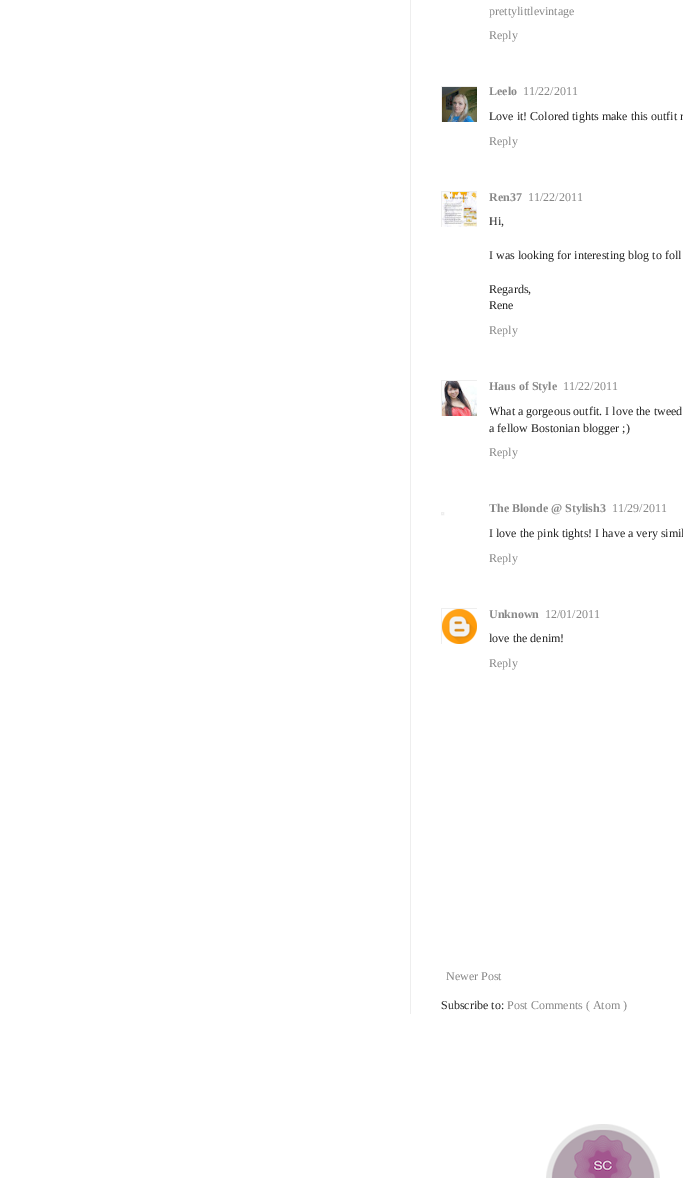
%!PS
<< /PageSize [683 1178] >> setpagedevice
/q/gsave load def
/Q_/grestore load def
/C { dup -16 bitshift 255 div exch dup -8 bitshift 255 and 255 div exch 255 and 255 div setrgbcolor } def
/F { [ exch dup neg 0 0 3 -1 roll 0 0 ] selectfont } def
/T { moveto show } def
/R { rectfill } def
/I { 5 dict begin { /h /w /y /x /name } { exch def } forall
  gsave x y translate w h scale
  w h 8 [w 0 0 h 0 0] name (r) file false 3 colorimage grestore end } def
0 1178 translate 1 -1 scale
4 setmiterlimit
16#FFFFFF C
0 0 683 1178 R
16#EEEEEE C
410 0 1 1014 R
/LiberationSerif-Regular 12 F
16#888888 C
(prettylittlevintage) 489 15 T
(Reply) 489 39 T
q
441 86 36 36 rectclip
16#EEEEEE C
441.5 86.5 37 37 rectstroke
Q_
(1.rgb) 442 87 35 35 I
/LiberationSerif-Bold 12 F
(Leelo) 489 95 T
/LiberationSerif-Regular 12 F
(11/22/2011) 523 95 T
16#222222 C
(Love it! Colored tights make this outfit r) 489 120 T
16#888888 C
(Reply) 489 145 T
q
441 191 36 36 rectclip
16#EEEEEE C
441.5 191.5 37 37 rectstroke
Q_
(2.rgb) 442 192 35 35 I
/LiberationSerif-Bold 12 F
(Ren37) 489 201 T
/LiberationSerif-Regular 12 F
(11/22/2011) 528 201 T
16#222222 C
(Hi,) 489 225 T
(I was looking for interesting blog to foll) 489 259 T
(Regards,) 489 293 T
(Rene) 489 309 T
16#888888 C
(Reply) 489 334 T
q
441 380 36 36 rectclip
16#EEEEEE C
441.5 380.5 37 37 rectstroke
Q_
(3.rgb) 442 381 35 35 I
/LiberationSerif-Bold 12 F
(Haus of Style) 489 390 T
/LiberationSerif-Regular 12 F
(11/22/2011) 563 390 T
16#222222 C
(What a gorgeous outfit. I love the tweed) 489 415 T
(a fellow Bostonian blogger ;\)) 489 432 T
16#888888 C
(Reply) 489 456 T
16#EEEEEE C
441.5 512.5 2 2 rectstroke
/LiberationSerif-Bold 12 F
16#888888 C
(The Blonde @ Stylish3) 489 512 T
/LiberationSerif-Regular 12 F
(11/29/2011) 612 512 T
16#222222 C
(I love the pink tights! I have a very simil) 489 537 T
16#888888 C
(Reply) 489 562 T
q
441 608 36 36 rectclip
16#EEEEEE C
441.5 608.5 36 36 rectstroke
Q_
(4.rgb) 442 609 35 35 I
/LiberationSerif-Bold 12 F
(Unknown) 489 618 T
/LiberationSerif-Regular 12 F
(12/01/2011) 545 618 T
16#222222 C
(love the denim!) 489 642 T
16#888888 C
(Reply) 489 667 T
(Newer Post) 446 980 T
16#222222 C
(Subscribe to:) 441 1009 T
16#888888 C
(Post Comments \( Atom \)) 507 1009 T
(5.rgb) 546 1124 114 54 I
showpage
